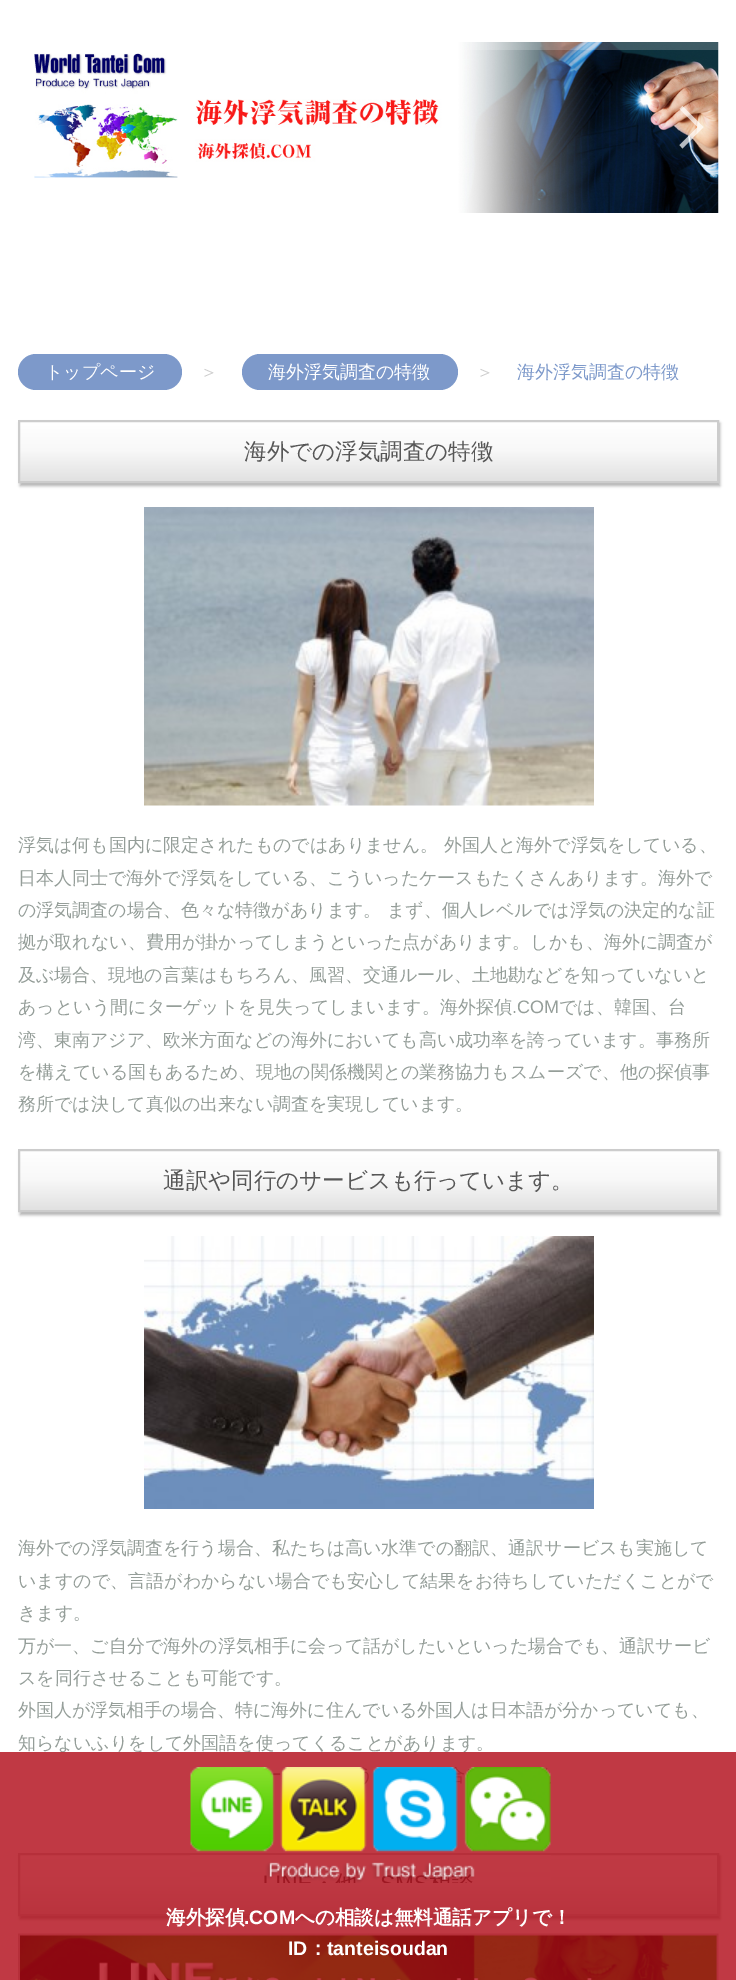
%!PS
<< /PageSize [736 1980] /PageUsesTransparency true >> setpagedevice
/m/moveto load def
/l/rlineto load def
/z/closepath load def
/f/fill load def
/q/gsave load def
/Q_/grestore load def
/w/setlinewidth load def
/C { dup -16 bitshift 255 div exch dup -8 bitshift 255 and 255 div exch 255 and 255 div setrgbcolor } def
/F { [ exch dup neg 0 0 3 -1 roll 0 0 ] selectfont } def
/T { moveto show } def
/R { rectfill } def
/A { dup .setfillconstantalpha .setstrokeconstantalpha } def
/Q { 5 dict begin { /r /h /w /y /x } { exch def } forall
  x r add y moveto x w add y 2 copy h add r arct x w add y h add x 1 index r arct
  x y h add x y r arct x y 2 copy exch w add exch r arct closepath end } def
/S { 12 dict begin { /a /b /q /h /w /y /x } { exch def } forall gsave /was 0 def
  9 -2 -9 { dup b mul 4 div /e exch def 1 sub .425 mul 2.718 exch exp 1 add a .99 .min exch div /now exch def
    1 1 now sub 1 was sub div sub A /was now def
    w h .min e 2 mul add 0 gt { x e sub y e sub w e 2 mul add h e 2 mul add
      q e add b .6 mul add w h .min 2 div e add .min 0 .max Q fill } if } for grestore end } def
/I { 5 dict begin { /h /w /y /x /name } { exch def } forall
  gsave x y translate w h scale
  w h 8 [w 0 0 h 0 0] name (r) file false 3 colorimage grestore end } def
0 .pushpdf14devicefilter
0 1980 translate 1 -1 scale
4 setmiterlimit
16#FFFFFF C
0 0 736 1980 R
(1.rgb) 34 42 685 171 I
0.2 A
470 42 249 8 R
0.7 A
33 127 m 21 -21 l 3 3 l -18 18 l z f
682.5 106 m 21 21 l -6 0 l -18 -18 l z 703.5 127 m -21 21.5 l -3 -3.5 l 18 -18 l z f
1 A
16#7D99CA C
18 354 164 36 18 Q f
/WenQuanYiZenHei-Medium 18 F
16#FFFFFF C
(トップページ) 45 378 T
16#CCCCCC C
(＞) 200 378 T
16#7D99CA C
242 354 216 36 18 Q f
16#FFFFFF C
(海外浮気調査の特徴) 268 378 T
16#CCCCCC C
(＞) 476 378 T
16#7D99CA C
(海外浮気調査の特徴) 517 378 T
16#000000 C
20 423 700 63 0 1.5 .3 S
q 20 422 m 697 0 l 0 59 l -697 0 l z clip newpath
<< /ShadingType 2 /ColorSpace /DeviceRGB /Coords [368 422 368 482] /Extend [true true] /Function << /FunctionType 3 /Domain [0 1] /Functions [<< /FunctionType 2 /Domain [0 1] /C0 [1 1 1] /C1 [.973 .973 .973] /N 1 >> << /FunctionType 2 /Domain [0 1] /C0 [.973 .973 .973] /C1 [.878 .878 .878] /N 1 >>] /Bounds [.47] /Encode [0 1 0 1] >> >> shfill Q_
16#CCCCCC C
2 w
19 421 699 61 rectstroke
/WenQuanYiZenHei-Medium 22.5 F
16#575757 C
(海外での浮気調査の特徴) 244 459 T
(2.rgb) 144 507 450 299 I
/WenQuanYiZenHei-Medium 18 F
16#959E99 C
(浮気は何も国内に限定されたものではありません。 外国人と海外で浮気をしている、) 18 851 T
(日本人同士で海外で浮気をしている、こういったケースもたくさんあります。海外で) 18 884 T
(の浮気調査の場合、色々な特徴があります。 まず、個人レベルでは浮気の決定的な証) 18 916 T
(拠が取れない、費用が掛かってしまうといった点があります。しかも、海外に調査が) 18 948 T
(及ぶ場合、現地の言葉はもちろん、風習、交通ルール、土地勘などを知っていないと) 18 981 T
(あっという間にターゲットを見失ってしまいます。海外探偵) 18 1013 T
/LiberationSans-Regular 18 F
(.COM) 512 1013 T
/WenQuanYiZenHei-Medium 18 F
(では、韓国、台) 559 1013 T
(湾、東南アジア、欧米方面などの海外においても高い成功率を誇っています。事務所) 18 1046 T
(を構えている国もあるため、現地の関係機関との業務協力もスムーズで、他の探偵事) 18 1078 T
(務所では決して真似の出来ない調査を実現しています。) 18 1110 T
16#000000 C
20 1152 700 63 0 1.5 .3 S
q 20 1151 m 697 0 l 0 59 l -697 0 l z clip newpath
<< /ShadingType 2 /ColorSpace /DeviceRGB /Coords [368 1151 368 1211] /Extend [true true] /Function << /FunctionType 3 /Domain [0 1] /Functions [<< /FunctionType 2 /Domain [0 1] /C0 [1 1 1] /C1 [.973 .973 .973] /N 1 >> << /FunctionType 2 /Domain [0 1] /C0 [.973 .973 .973] /C1 [.878 .878 .878] /N 1 >>] /Bounds [.47] /Encode [0 1 0 1] >> >> shfill Q_
16#CCCCCC C
19 1150 699 61 rectstroke
/WenQuanYiZenHei-Medium 22.5 F
16#575757 C
(通訳や同行のサービスも行っています。) 163 1188 T
(3.rgb) 144 1236 450 273 I
/WenQuanYiZenHei-Medium 18 F
16#959E99 C
(海外での浮気調査を行う場合、私たちは高い水準での翻訳、通訳サービスも実施して) 18 1554 T
(いますので、言語がわからない場合でも安心して結果をお待ちしていただくことがで) 18 1587 T
(きます。) 18 1619 T
(万が一、ご自分で海外の浮気相手に会って話がしたいといった場合でも、通訳サービ) 18 1652 T
(スを同行させることも可能です。) 18 1684 T
(外国人が浮気相手の場合、特に海外に住んでいる外国人は日本語が分かっていても、) 18 1716 T
(知らないふりをして外国語を使ってくることがあります。) 18 1749 T
16#000000 C
20 1856 700 63 0 1.5 .3 S
q 20 1855 m 697 0 l 0 59 l -697 0 l z clip newpath
<< /ShadingType 2 /ColorSpace /DeviceRGB /Coords [368 1854 368 1914] /Extend [true true] /Function << /FunctionType 3 /Domain [0 1] /Functions [<< /FunctionType 2 /Domain [0 1] /C0 [1 1 1] /C1 [.973 .973 .973] /N 1 >> << /FunctionType 2 /Domain [0 1] /C0 [.973 .973 .973] /C1 [.878 .878 .878] /N 1 >>] /Bounds [.47] /Encode [0 1 0 1] >> >> shfill Q_
16#CCCCCC C
19 1854 699 61 rectstroke
(4.rgb) 18 1933 701 47 I
0.8 A
16#B00815 C
0 1752 736 228 R
1 A
(5.rgb) 190 1767 361 116 I
/WenQuanYiZenHei-Bold 19.5 F
16#FFFFFF C
(海外探偵) 166 1924 T
/LiberationSans-Bold 19.5 F
(.COM) 244 1924 T
/WenQuanYiZenHei-Bold 19.5 F
(への相談は無料通話アプリで！) 295 1924 T
/LiberationSans-Bold 19.5 F
(ID) 288 1955 T
/WenQuanYiZenHei-Bold 19.5 F
(：) 308 1955 T
/LiberationSans-Bold 19.5 F
(tanteisoudan) 327 1955 T
.poppdf14devicefilter showpage
